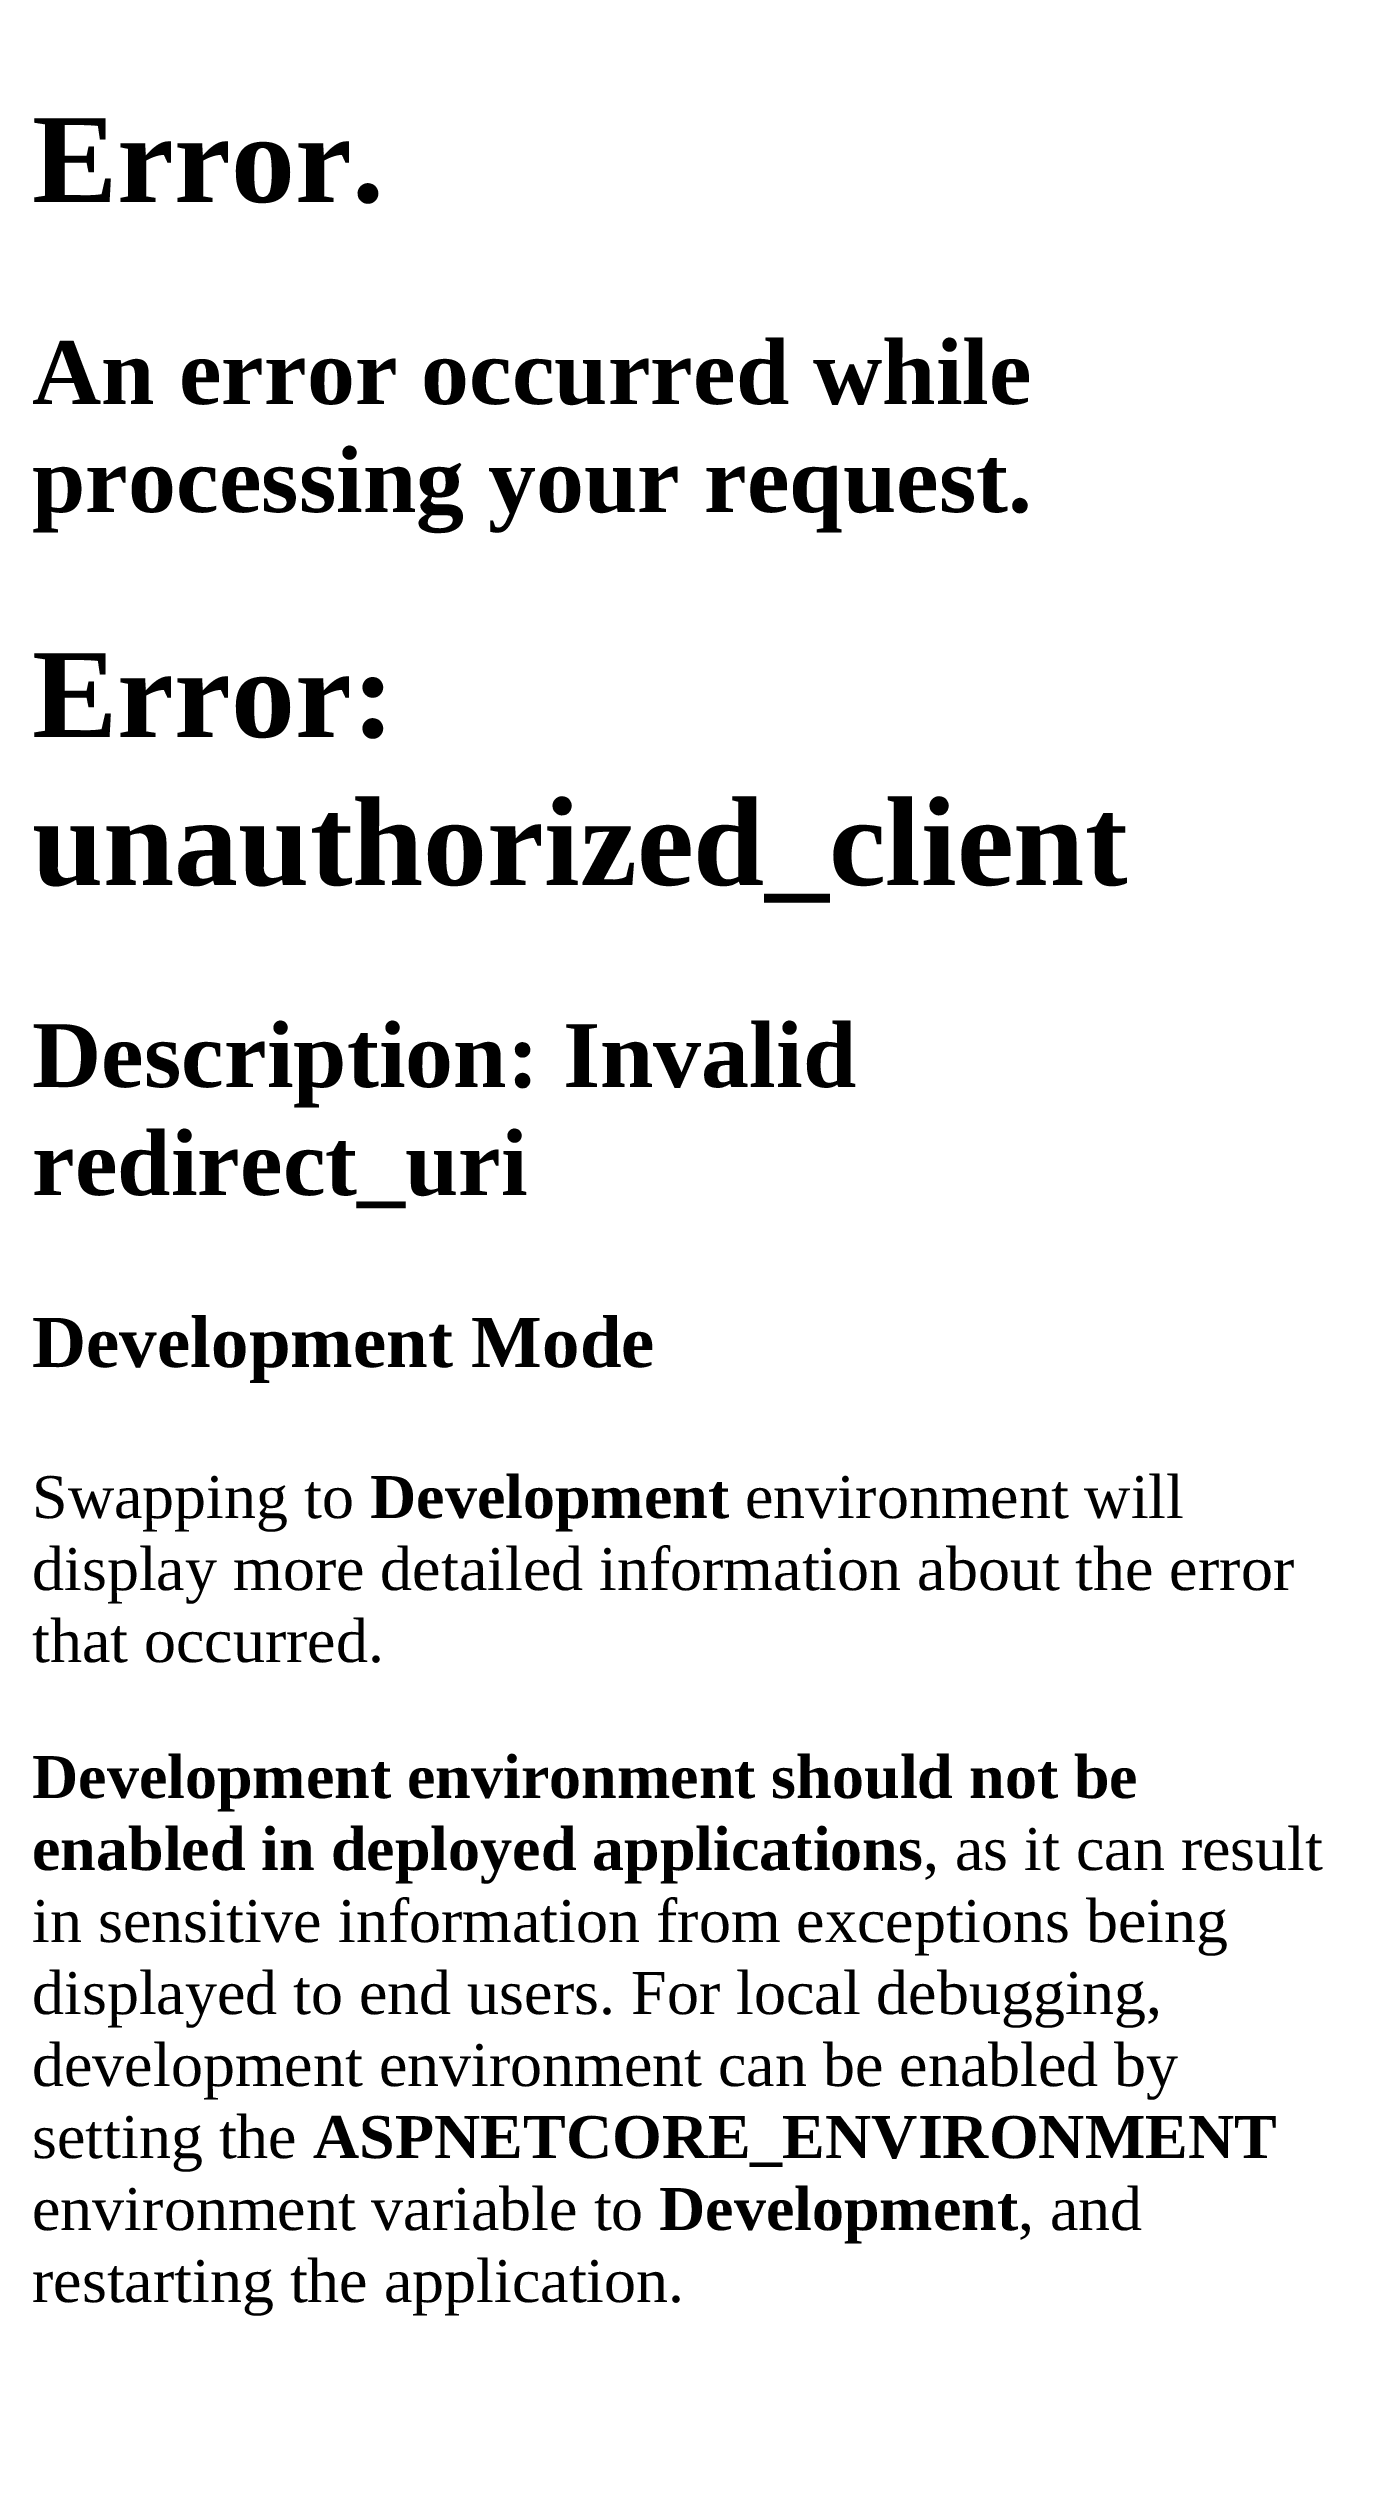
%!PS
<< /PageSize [1381 2499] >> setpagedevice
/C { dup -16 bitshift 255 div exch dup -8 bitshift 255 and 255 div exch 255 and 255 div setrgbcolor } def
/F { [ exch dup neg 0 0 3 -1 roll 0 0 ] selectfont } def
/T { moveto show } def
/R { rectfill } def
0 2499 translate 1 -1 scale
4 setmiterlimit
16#FFFFFF C
0 0 1381 2499 R
/LiberationSerif-Bold 128 F
16#000000 C
(Error.) 32 202 T
/LiberationSerif-Bold 96 F
(An error occurred while) 32 404 T
(processing your request.) 32 512 T
/LiberationSerif-Bold 128 F
(Error:) 32 737 T
(unauthorized_client) 32 885 T
/LiberationSerif-Bold 96 F
(Description: Invalid) 32 1087 T
(redirect_uri) 32 1195 T
/LiberationSerif-Bold 75 F
(Development Mode) 32 1367 T
/LiberationSerif-Regular 64 F
(Swapping to) 32 1518 T
/LiberationSerif-Bold 64 F
(Development) 370 1518 T
/LiberationSerif-Regular 64 F
(environment will) 745 1518 T
(display more detailed information about the error) 32 1590 T
(that occurred.) 32 1662 T
/LiberationSerif-Bold 64 F
(Development environment should not be) 32 1798 T
(enabled in deployed applications) 32 1870 T
/LiberationSerif-Regular 64 F
(, as it can result) 923 1870 T
(in sensitive information from exceptions being) 32 1942 T
(displayed to end users. For local debugging,) 32 2014 T
(development environment can be enabled by) 32 2086 T
(setting the) 32 2158 T
/LiberationSerif-Bold 64 F
(ASPNETCORE_ENVIRONMENT) 313 2158 T
/LiberationSerif-Regular 64 F
(environment variable to) 32 2230 T
/LiberationSerif-Bold 64 F
(Development) 659 2230 T
/LiberationSerif-Regular 64 F
(, and) 1018 2230 T
(restarting the application.) 32 2302 T
showpage
